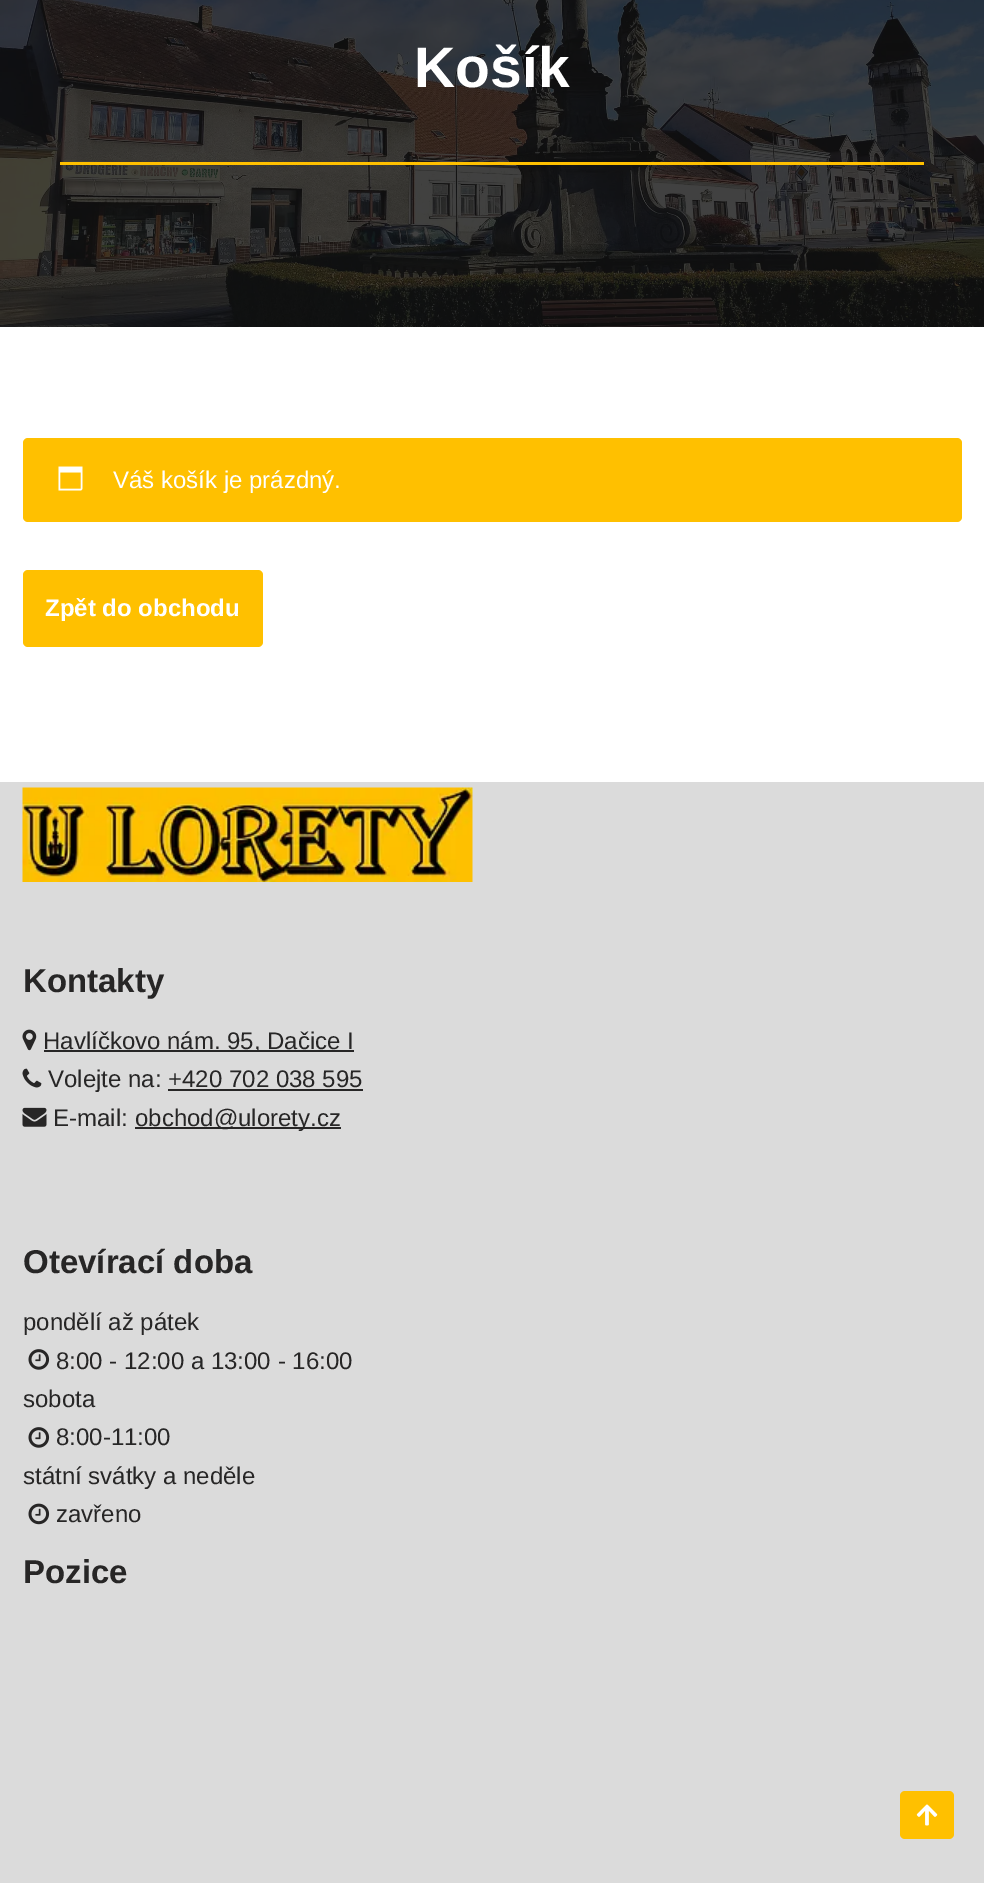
%!PS
<< /PageSize [984 1883] >> setpagedevice
/f/fill load def
/C { dup -16 bitshift 255 div exch dup -8 bitshift 255 and 255 div exch 255 and 255 div setrgbcolor } def
/F { [ exch dup neg 0 0 3 -1 roll 0 0 ] selectfont } def
/T { moveto show } def
/R { rectfill } def
/Q { 5 dict begin { /r /h /w /y /x } { exch def } forall
  x r add y moveto x w add y 2 copy h add r arct x w add y h add x 1 index r arct
  x y h add x y r arct x y 2 copy exch w add exch r arct closepath end } def
/I { 5 dict begin { /h /w /y /x /name } { exch def } forall
  gsave x y translate w h scale
  w h 8 [w 0 0 h 0 0] name (r) file false 3 colorimage grestore end } def
0 1883 translate 1 -1 scale
4 setmiterlimit
16#FFFFFF C
0 0 984 1883 R
(1.rgb) 0 0 984 327 I
/LiberationSans-Bold 57 F
(Košík) 414 87 T
16#FFC000 C
60 162 864 3 R
23 438 939 84 5 Q f
(2.rgb) 58 466 25 25 I
/LiberationSans-Regular 24 F
16#FFFFFF C
(Váš košík je prázdný.) 113 488 T
16#FFC000 C
23 570 240 77 5 Q f
/LiberationSans-Bold 24 F
16#FFFFFF C
(Zpět do obchodu) 45 616 T
16#DBDBDB C
0 782 984 1101 R
(3.rgb) 22 787 451 95 I
/LiberationSans-Bold 33 F
16#272626 C
(Kontakty) 23 992 T
(4.rgb) 22 1029 15 22 I
44 1050 310 2 R
/LiberationSans-Regular 24 F
(Havlíčkovo nám. 95, Dačice I) 43 1049 T
(5.rgb) 22 1068 20 20 I
(Volejte na: +420 702 038 595) 48 1087 T
168 1089 195 2 R
(6.rgb) 22 1107 25 20 I
(E-mail:) 53 1126 T
135 1127 206 2 R
(obchod@ulorety.cz) 135 1126 T
/LiberationSans-Bold 33 F
(Otevírací doba) 23 1273 T
/LiberationSans-Regular 24 F
(pondělí až pátek) 23 1330 T
(7.rgb) 28 1349 22 21 I
(8:00 - 12:00 a 13:00 - 16:00) 56 1369 T
(sobota) 23 1407 T
(7.rgb) 28 1427 22 21 I
(8:00-11:00) 56 1445 T
(státní svátky a neděle) 23 1484 T
(8.rgb) 28 1503 22 22 I
(zavřeno) 56 1522 T
/LiberationSans-Bold 33 F
(Pozice) 23 1583 T
16#FFC000 C
900 1791 54 48 5 Q f
(9.rgb) 916 1804 22 22 I
showpage
